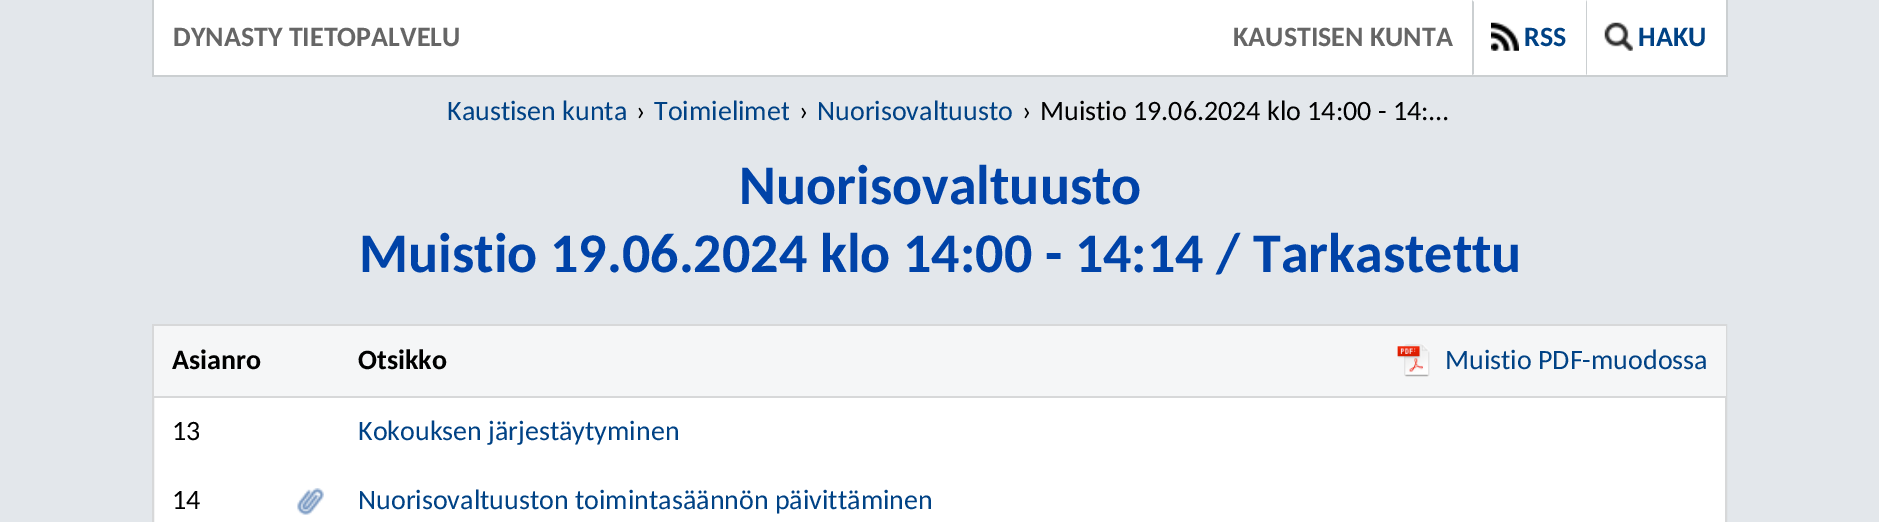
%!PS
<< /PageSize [1879 522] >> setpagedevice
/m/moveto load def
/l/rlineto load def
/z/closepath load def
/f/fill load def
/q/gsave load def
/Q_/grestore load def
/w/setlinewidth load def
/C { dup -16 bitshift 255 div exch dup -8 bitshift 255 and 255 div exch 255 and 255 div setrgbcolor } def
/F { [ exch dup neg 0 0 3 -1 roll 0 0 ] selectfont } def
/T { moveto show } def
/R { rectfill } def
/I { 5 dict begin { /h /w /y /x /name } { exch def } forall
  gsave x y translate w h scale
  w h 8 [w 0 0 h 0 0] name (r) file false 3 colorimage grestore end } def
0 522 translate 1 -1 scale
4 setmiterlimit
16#E3E7EB C
0 0 1879 522 R
16#FFFFFF C
154 0 1572 75 R
16#CBCFD1 C
1726 0 2 77 R
152 75 1575 2 R
152 0 2 77 R
/Carlito-Bold 28 F
16#666666 C
(DYNASTY TIETOPALVELU) 173 46 T
(KAUSTISEN KUNTA) 1233 46 T
16#CBCFD1 C
1472 75 m 0 -75 l 2 2 l 0 72 l z f
(1.rgb) 1491 22 28 29 I
16#004285 C
(RSS) 1524 46 T
16#CBCFD1 C
1586 75 m 0 -75 l 1 2 l 0 72 l z f
(2.rgb) 1604 22 29 29 I
16#004285 C
(HAKU) 1638 46 T
/Carlito-Regular 28 F
(Kaustisen kunta) 447 120 T
16#000000 C
(›) 636 120 T
q
627 95 162 33 rectclip
16#004285 C
(Toimielimet) 654 120 T
Q_
(›) 799 120 T
16#004285 C
(Nuorisovaltuusto) 817 120 T
16#000000 C
(›) 1022 120 T
(Muistio 19.06.2024 klo 14:00 - 14:…) 1040 120 T
/Carlito-Bold 56 F
16#0043A8 C
(Nuorisovaltuusto) 739 204 T
(Muistio 19.06.2024 klo 14:00 - 14:14 / Tarkastettu) 359 272 T
16#FFFFFF C
154 398 1571 124 R
16#D7D8D9 C
2 w
153 325 1573 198 rectstroke
16#F5F6F7 C
154 326 1572 70 R
16#D7D8D9 C
154 396 1572 2 R
/Carlito-Bold 28 F
16#000000 C
(Asianro) 172 369 T
(Otsikko) 358 369 T
(3.rgb) 1397 344 33 33 I
/Carlito-Regular 28 F
16#004285 C
(Muistio PDF-muodossa) 1445 369 T
16#000000 C
(13) 172 440 T
16#004285 C
(Kokouksen järjestäytyminen) 358 440 T
16#000000 C
(14) 172 509 T
(4.rgb) 297 488 27 27 I
16#004285 C
(Nuorisovaltuuston toimintasäännön päivittäminen) 358 509 T
showpage
